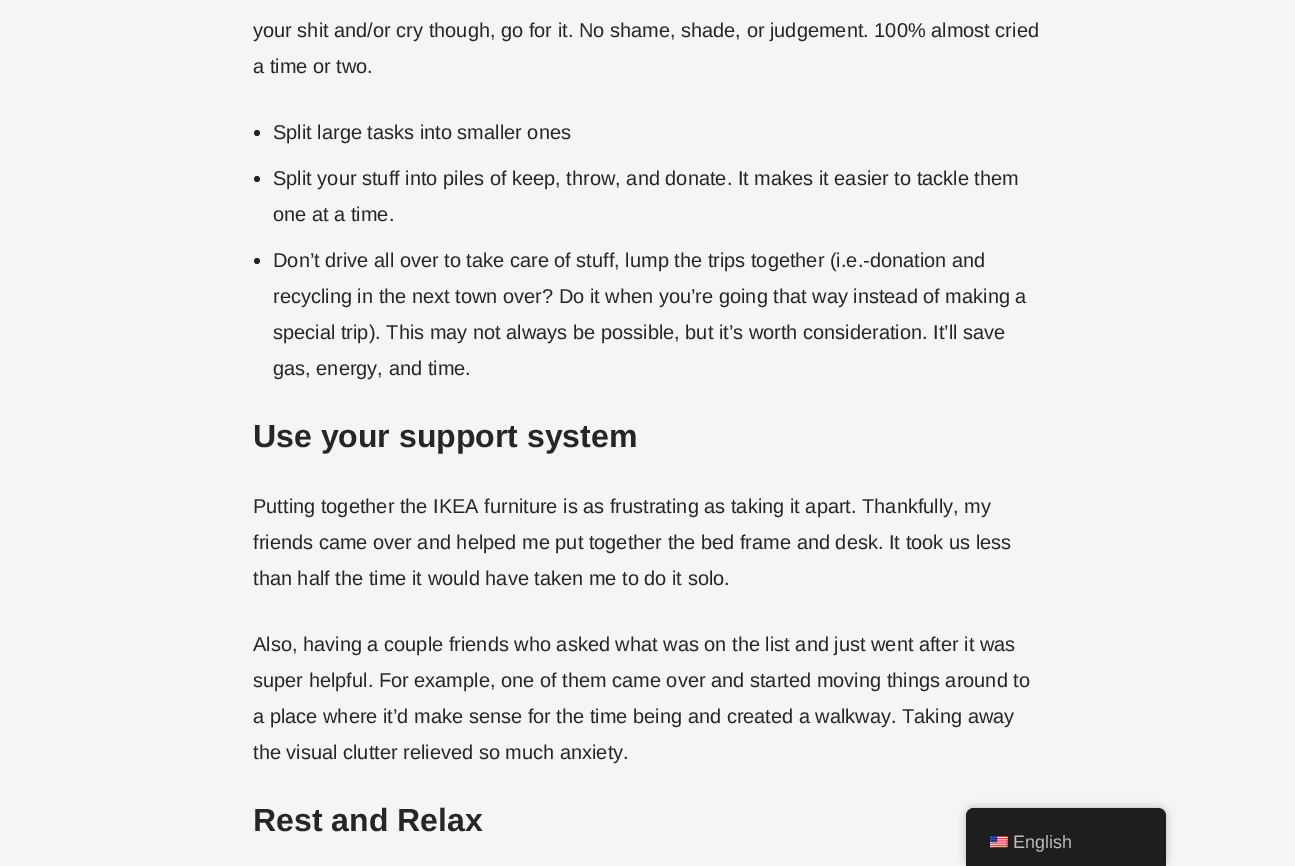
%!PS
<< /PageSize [1295 866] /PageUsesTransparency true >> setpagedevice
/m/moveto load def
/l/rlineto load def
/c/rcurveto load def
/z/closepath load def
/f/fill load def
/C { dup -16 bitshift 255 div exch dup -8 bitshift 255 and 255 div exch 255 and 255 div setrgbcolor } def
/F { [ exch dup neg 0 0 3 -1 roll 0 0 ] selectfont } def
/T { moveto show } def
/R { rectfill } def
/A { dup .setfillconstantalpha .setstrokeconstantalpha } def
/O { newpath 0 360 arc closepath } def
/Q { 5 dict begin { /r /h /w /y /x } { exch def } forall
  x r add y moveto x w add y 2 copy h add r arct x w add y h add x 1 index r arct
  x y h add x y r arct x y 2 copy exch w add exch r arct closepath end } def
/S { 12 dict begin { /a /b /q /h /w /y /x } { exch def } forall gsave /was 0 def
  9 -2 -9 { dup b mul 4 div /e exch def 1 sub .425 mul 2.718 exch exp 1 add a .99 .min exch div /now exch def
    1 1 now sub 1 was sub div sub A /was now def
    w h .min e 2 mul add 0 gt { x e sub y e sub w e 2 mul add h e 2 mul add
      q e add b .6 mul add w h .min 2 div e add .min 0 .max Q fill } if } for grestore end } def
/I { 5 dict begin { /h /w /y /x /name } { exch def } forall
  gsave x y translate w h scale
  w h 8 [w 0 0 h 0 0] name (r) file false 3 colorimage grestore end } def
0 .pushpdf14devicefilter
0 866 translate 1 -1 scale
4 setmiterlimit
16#F4F5F7 C
0 0 1295 866 R
/LiberationSans-Regular 20 F
16#272626 C
(your shit and/or cry though, go for it. No shame, shade, or judgement. 100% almost cried) 253 37 T
(a time or two.) 253 73 T
257 133 3 O f
(Split large tasks into smaller ones) 273 139 T
257 179 3 O f
(Split your stuff into piles of keep, throw, and donate. It makes it easier to tackle them) 273 185 T
(one at a time.) 273 221 T
257 261 3 O f
(Don’t drive all over to take care of stuff, lump the trips together \(i.e.-donation and) 273 267 T
(recycling in the next town over? Do it when you’re going that way instead of making a) 273 303 T
(special trip\). This may not always be possible, but it’s worth consideration. It’ll save) 273 339 T
(gas, energy, and time.) 273 375 T
/LiberationSans-Bold 32 F
(Use your support system) 253 447 T
/LiberationSans-Regular 20 F
(Putting together the IKEA furniture is as frustrating as taking it apart. Thankfully, my) 253 513 T
(friends came over and helped me put together the bed frame and desk. It took us less) 253 549 T
(than half the time it would have taken me to do it solo.) 253 585 T
(Also, having a couple friends who asked what was on the list and just went after it was) 253 651 T
(super helpful. For example, one of them came over and started moving things around to) 253 687 T
(a place where it’d make sense for the time being and created a walkway. Taking away) 253 723 T
(the visual clutter relieved so much anxiety.) 253 759 T
/LiberationSans-Bold 32 F
(Rest and Relax) 253 831 T
16#000000 C
966 808 200 58 8 4 .25 S
16#1E1E1E C
974 808 m 184 0 l 4.5 0 8 3.5 8 8 c 0 50 l -200 0 l 0 -50 l 0 -4.5 3.5 -8 8 -8 c z f
(1.rgb) 990 836 18 12 I
/LiberationSans-Regular 18 F
16#BDBDBD C
(English) 1013 848 T
.poppdf14devicefilter showpage
